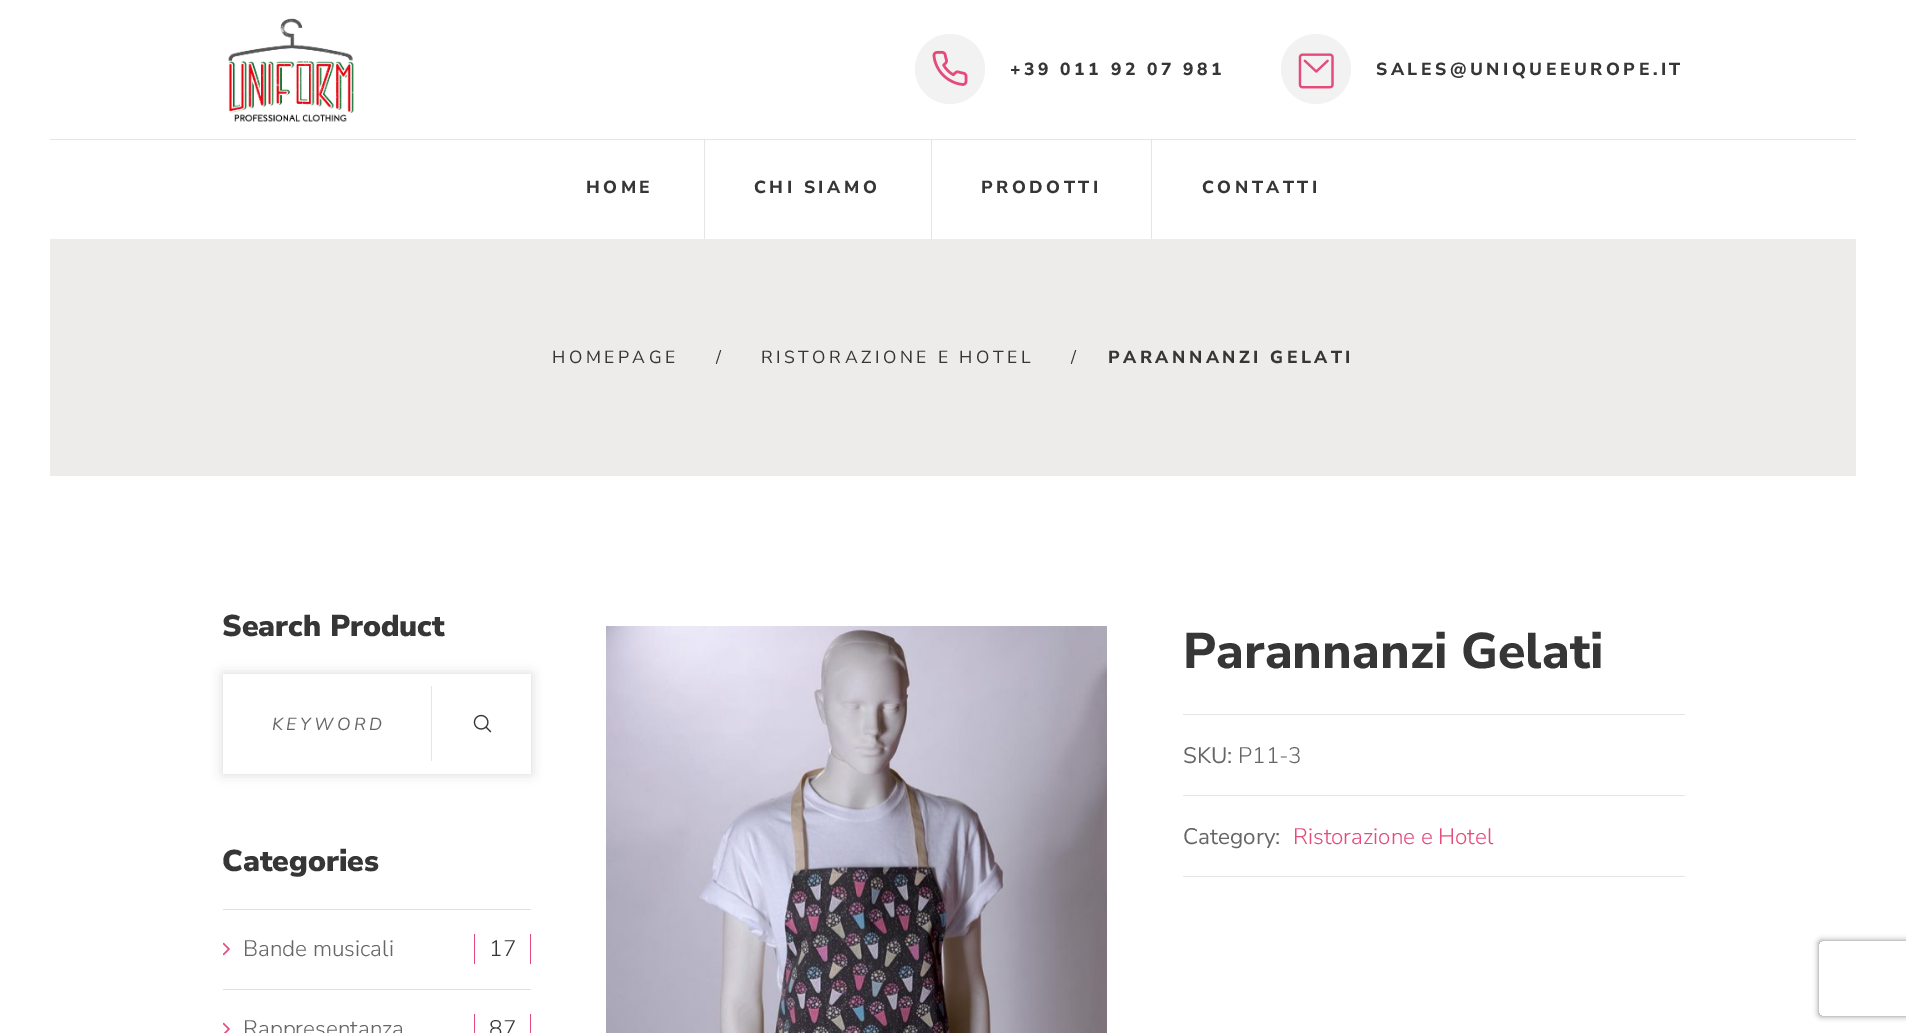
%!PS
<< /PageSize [1906 1033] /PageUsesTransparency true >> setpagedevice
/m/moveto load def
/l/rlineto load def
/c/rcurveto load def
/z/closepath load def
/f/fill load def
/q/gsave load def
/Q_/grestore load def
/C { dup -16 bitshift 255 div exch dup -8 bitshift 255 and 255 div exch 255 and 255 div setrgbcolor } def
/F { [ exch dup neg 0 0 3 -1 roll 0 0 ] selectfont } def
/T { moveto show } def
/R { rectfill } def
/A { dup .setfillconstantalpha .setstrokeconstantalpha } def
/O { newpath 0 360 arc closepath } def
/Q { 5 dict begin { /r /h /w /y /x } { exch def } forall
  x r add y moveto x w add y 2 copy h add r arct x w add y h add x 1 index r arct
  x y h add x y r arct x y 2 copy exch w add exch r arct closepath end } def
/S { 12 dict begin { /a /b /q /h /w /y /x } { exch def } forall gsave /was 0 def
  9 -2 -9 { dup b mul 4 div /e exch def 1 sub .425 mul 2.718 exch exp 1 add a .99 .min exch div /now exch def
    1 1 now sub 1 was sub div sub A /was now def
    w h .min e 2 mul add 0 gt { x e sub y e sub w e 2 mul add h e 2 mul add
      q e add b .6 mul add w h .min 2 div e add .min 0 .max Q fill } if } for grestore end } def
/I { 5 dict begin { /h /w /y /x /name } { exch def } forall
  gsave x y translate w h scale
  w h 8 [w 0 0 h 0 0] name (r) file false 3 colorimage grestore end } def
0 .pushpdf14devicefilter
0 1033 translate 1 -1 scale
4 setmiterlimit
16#FFFFFF C
0 0 1906 1033 R
(1.rgb) 228 18 126 104 I
16#F2F2F2 C
950 69 35 O f
(2.rgb) 932 50 36 36 I
/NunitoSans-ExtraBold 17.5 F
16#363636 C
1010 75 m 3.5 0 (+39 011 92 07 981) ashow
16#F2F2F2 C
1316 69 35 O f
(3.rgb) 1298 53 36 36 I
16#363636 C
1376 75 m 3.5 0 (SALES@UNIQUEEUROPE.IT) ashow
16#E5E5E5 C
50 139 1806 1 R
16#363636 C
586 193 m 3.5 0 (HOME) ashow
16#E5E5E5 C
704 139 1 100 R
16#363636 C
754 193 m 3.5 0 (CHI SIAMO) ashow
16#E5E5E5 C
931 139 1 100 R
16#363636 C
981 193 m 3.5 0 (PRODOTTI) ashow
16#E5E5E5 C
1151 139 1 100 R
16#363636 C
1202 193 m 3.5 0 (CONTATTI) ashow
16#EDECEA C
50 239 1806 237 R
/NunitoSans-Regular 17.5 F
16#363636 C
552 363 m 3.5 0 (HOMEPAGE) ashow
716 363 m 3.5 0 (/) ashow
761 363 m 3.5 0 (RISTORAZIONE E HOTEL) ashow
1071 363 m 3.5 0 (/) ashow
/NunitoSans-ExtraBold 17.5 F
1108 363 m 3.5 0 (PARANNANZI GELATI) ashow
/NunitoSans-Black 30 F
(Search Product) 222 636 T
16#000000 C
223 674 308 100 0 6 .15 S
16#FFFFFF C
223 674 308 100 R
/NunitoSans-Italic 17.5 F
16#666666 C
272 730 m 3.5 0 (KEYWORD) ashow
16#E5E5E5 C
431 686 1 75 R
(4.rgb) 473 714 19 19 I
/NunitoSans-Black 30 F
16#363636 C
(Categories) 222 871 T
16#E0E0E0 C
223 909 308 1 R
(5.rgb) 223 942 7 14 I
/NunitoSans-Light 22.5 F
16#666666 C
(Bande musicali) 243 956 T
16#E44A7A C
530 934 1 30 R
474 934 1 30 R
16#363636 C
(17) 489 956 T
16#E0E0E0 C
223 989 308 1 R
(6.rgb) 223 1022 7 11 I
16#666666 C
(Rappresentanza) 243 1036 T
16#E44A7A C
530 1014 1 19 R
474 1014 1 19 R
16#363636 C
(87) 489 1036 T
(7.rgb) 606 626 501 407 I
/NunitoSans-ExtraBold 50 F
(Parannanzi Gelati) 1183 668 T
16#E5E5E5 C
1183 714 502 1 R
/NunitoSans-Regular 22.5 F
16#666666 C
(SKU:) 1183 763 T
/NunitoSans-Light 22.5 F
(P11-3) 1238 763 T
16#E5E5E5 C
1183 795 502 1 R
1183 876 502 1 R
/NunitoSans-Regular 22.5 F
16#666666 C
(Category:) 1183 844 T
/NunitoSans-Light 22.5 F
16#E44A7A C
(Ristorazione e Hotel) 1293 844 T
q
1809 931 m 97 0 l 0 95 l -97 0 l z 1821.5 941 m 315 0 l 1.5 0 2.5 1 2.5 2.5 c 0 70 l 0 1.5 -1 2.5 -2.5 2.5 c -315 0 l -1.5 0 -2.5 -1 -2.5 -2.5 c 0 -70 l 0 -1.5 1 -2.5 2.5 -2.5 c z eoclip newpath
16#808080 C
1819 941 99 75 2.5 3 1 S
Q_
.poppdf14devicefilter showpage
